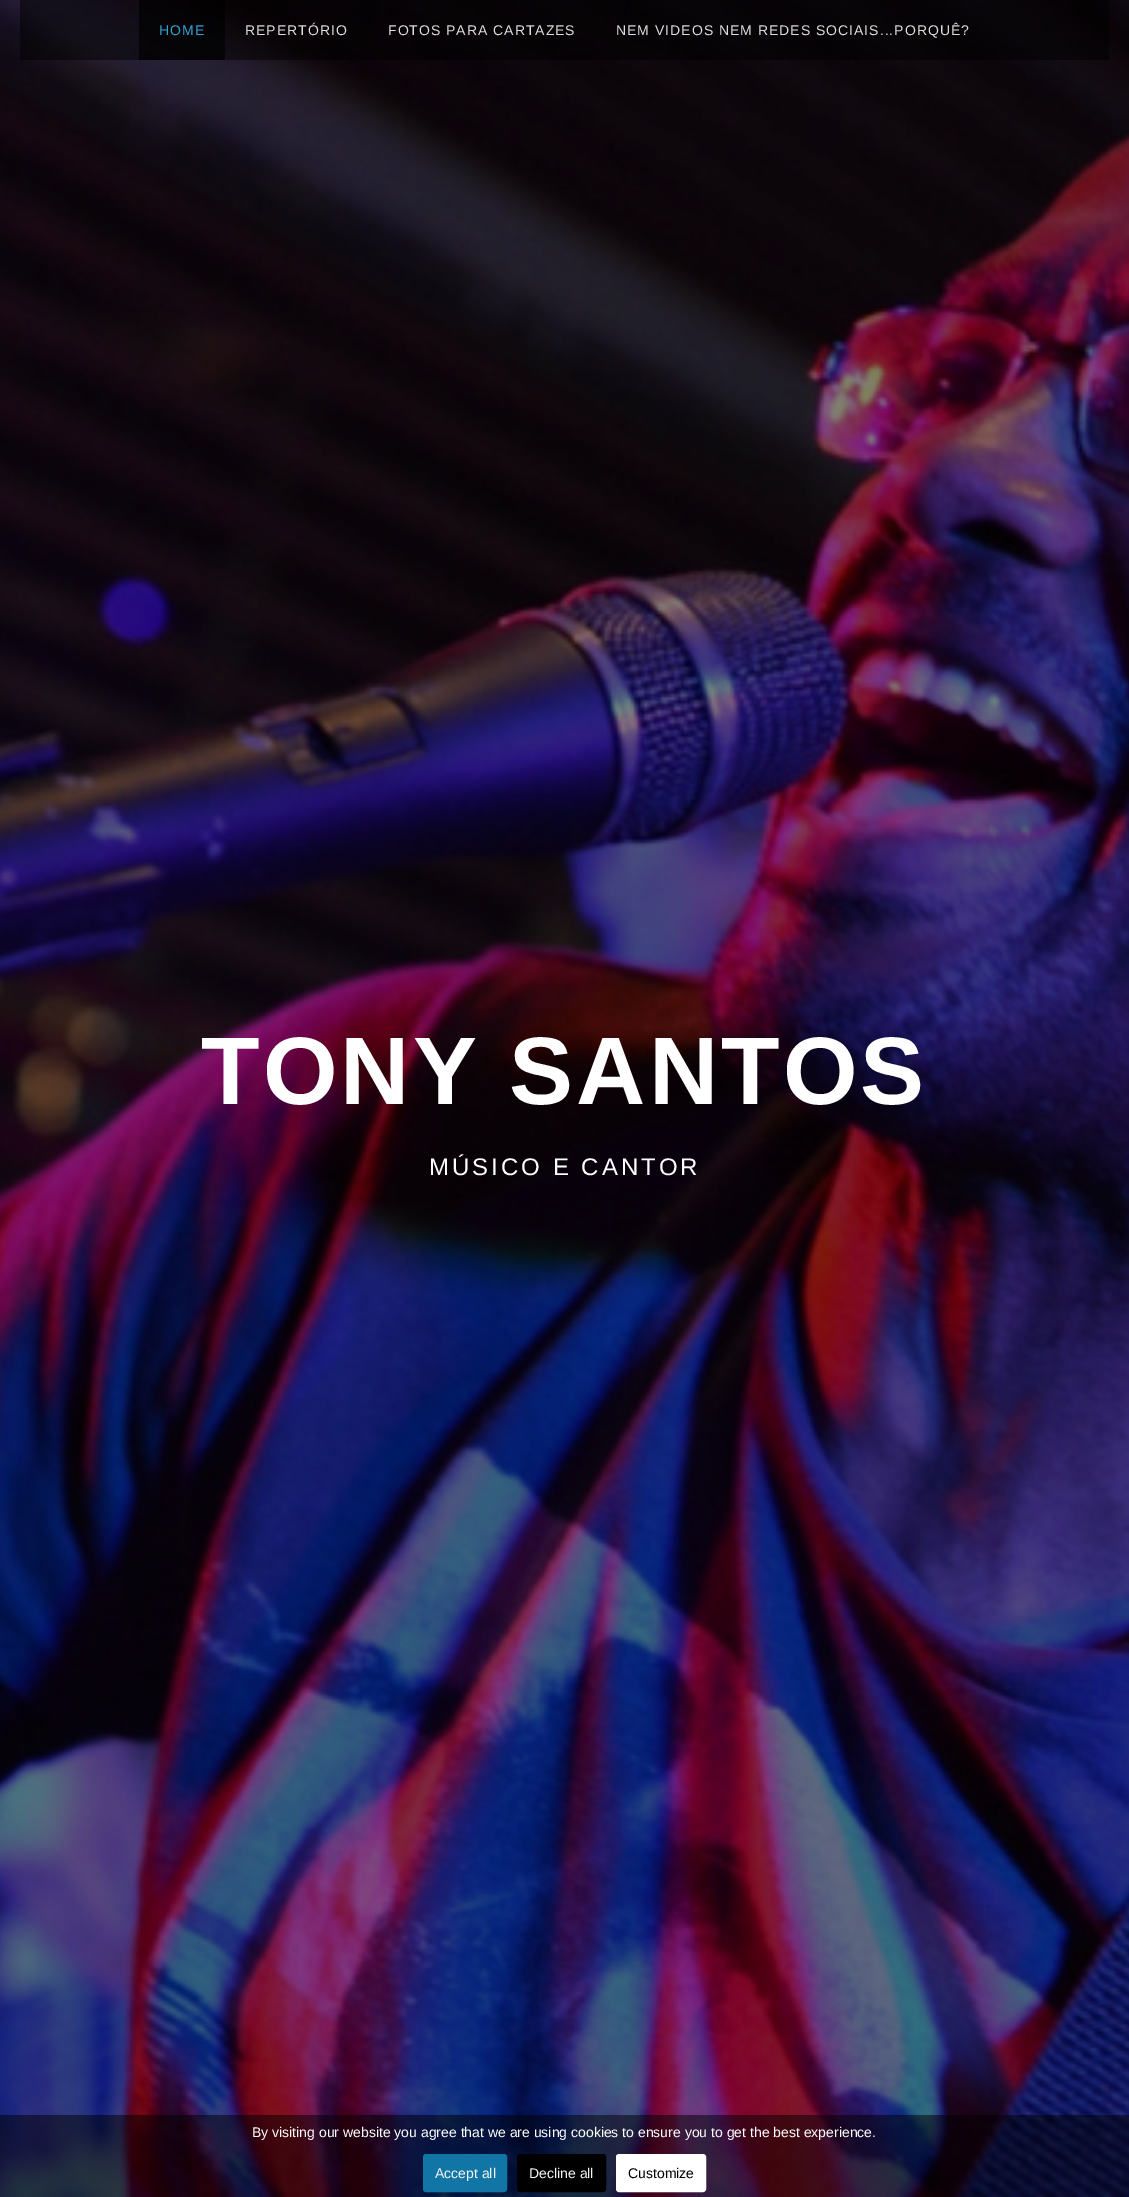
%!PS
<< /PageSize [1129 2197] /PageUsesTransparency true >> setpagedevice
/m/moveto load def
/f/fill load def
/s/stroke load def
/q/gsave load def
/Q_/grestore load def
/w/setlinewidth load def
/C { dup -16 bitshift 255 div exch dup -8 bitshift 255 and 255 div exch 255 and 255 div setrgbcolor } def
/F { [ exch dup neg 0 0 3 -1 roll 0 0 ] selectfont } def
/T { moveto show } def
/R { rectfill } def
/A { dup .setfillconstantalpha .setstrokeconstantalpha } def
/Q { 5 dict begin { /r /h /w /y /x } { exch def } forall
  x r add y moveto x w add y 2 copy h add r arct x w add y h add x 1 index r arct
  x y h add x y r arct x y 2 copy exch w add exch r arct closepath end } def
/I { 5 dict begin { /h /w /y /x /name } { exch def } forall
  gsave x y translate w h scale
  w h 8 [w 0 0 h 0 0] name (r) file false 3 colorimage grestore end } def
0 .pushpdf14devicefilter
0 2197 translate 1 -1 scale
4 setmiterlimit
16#FFFFFF C
0 0 1129 2197 R
(1.rgb) 0 0 1129 2197 I
0.5 A
16#000000 C
20 0 1089 60 R
0.7 A
139 0 86 60 R
/LiberationSans-Regular 14 F
1 A
16#32A4D2 C
159 35 m 1 0 (HOME) ashow
16#DDDDDD C
245 35 m 1 0 (REPERTÓRIO) ashow
388 35 m 1 0 (FOTOS PARA CARTAZES) ashow
616 35 m 1 0 (NEM VIDEOS NEM REDES SOCIAIS...PORQUÊ?) ashow
/LiberationSans-Bold 96 F
16#FFFFFF C
201 1104 m 3 0 (TONY SANTOS) ashow
/LiberationSans-Regular 24 F
429 1175 m 3 0 (MÚSICO E CANTOR) ashow
0.5 A
16#000000 C
0 2115 1129 82 R
/LiberationSans-Regular 14 F
1 A
16#FFFFFF C
(By visiting our website you agree that we are using cookies to ensure you to get the best experience.) 252 2137 T
16#1176A6 C
424 2155 82 36 2 Q q f Q_
2 w
s
16#F5F5F5 C
(Accept all) 435 2178 T
16#000000 C
518 2155 87 36 2 Q q f Q_
s
16#F5F5F5 C
(Decline all) 529 2178 T
16#FFFFFF C
617 2155 88 36 2 Q q f Q_
s
16#000000 C
(Customize) 628 2178 T
.poppdf14devicefilter showpage
